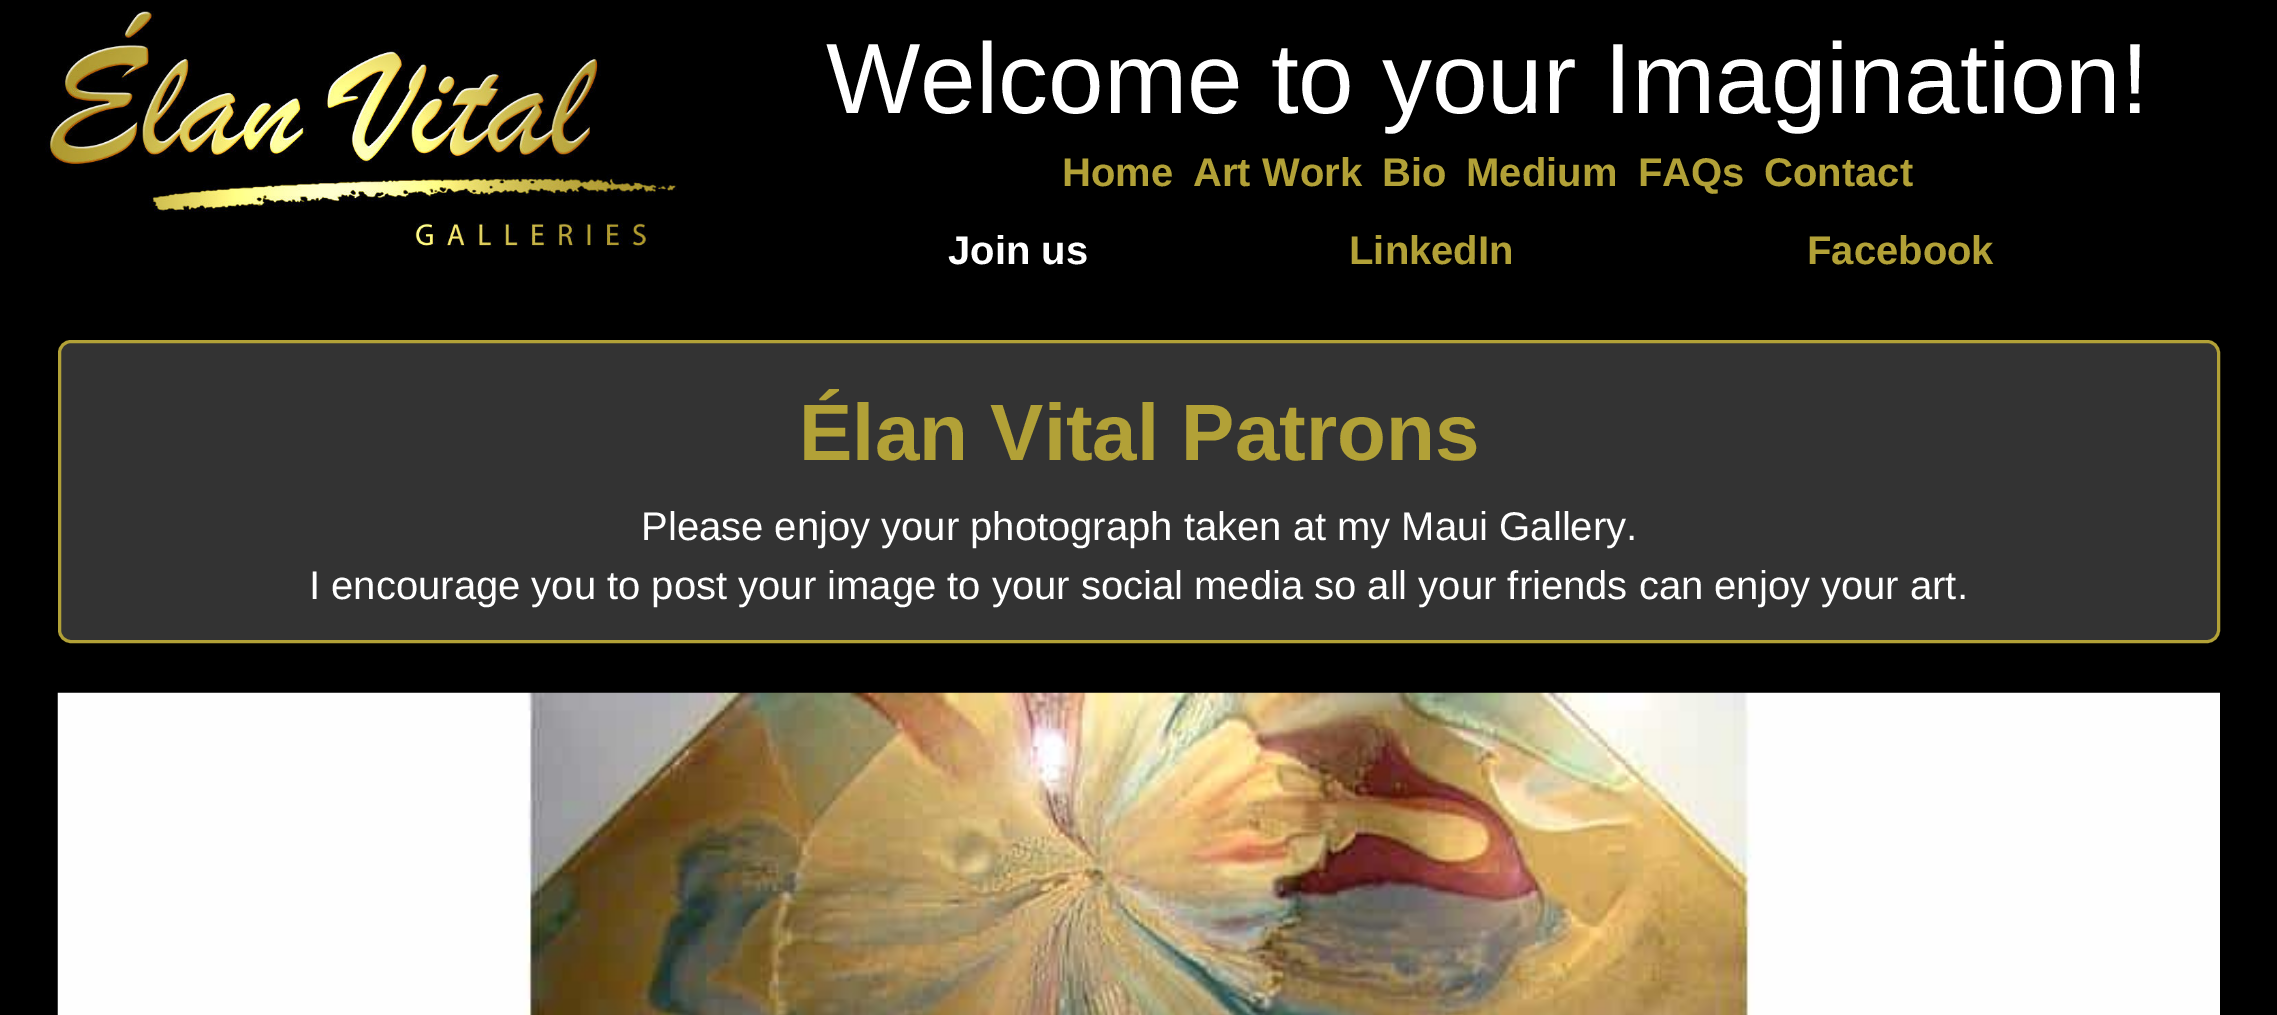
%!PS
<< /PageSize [2277 1015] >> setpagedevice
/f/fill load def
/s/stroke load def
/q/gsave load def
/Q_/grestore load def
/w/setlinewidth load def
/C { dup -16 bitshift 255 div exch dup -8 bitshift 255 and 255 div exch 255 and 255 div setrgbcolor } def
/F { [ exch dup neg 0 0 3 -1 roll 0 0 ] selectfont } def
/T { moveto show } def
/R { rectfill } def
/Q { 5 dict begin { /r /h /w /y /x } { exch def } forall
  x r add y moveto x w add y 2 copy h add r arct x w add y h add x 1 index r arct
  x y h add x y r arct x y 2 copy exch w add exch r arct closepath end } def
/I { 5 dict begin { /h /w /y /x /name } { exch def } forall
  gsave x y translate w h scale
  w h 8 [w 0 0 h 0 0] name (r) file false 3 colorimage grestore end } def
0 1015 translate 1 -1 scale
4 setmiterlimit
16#000000 C
0 0 2277 1015 R
(1.rgb) 45 11 632 239 I
/LiberationSans-Regular 100 F
16#FFFFFF C
(Welcome to your Imagination!) 826 113 T
/LiberationSans-Bold 40 F
16#B2A137 C
(Home) 1062 186 T
(Art Work) 1193 186 T
(Bio) 1382 186 T
(Medium) 1466 186 T
(FAQs) 1638 186 T
(Contact) 1764 186 T
16#FFFFFF C
(Join us) 948 264 T
16#B2A137 C
(LinkedIn) 1349 264 T
(Facebook) 1807 264 T
16#333333 C
59.5 341.5 2159 300 11.5 Q q f Q_
16#B2A137 C
3 w
s
/LiberationSans-Bold 80 F
(Élan Vital Patrons) 799 460 T
/LiberationSans-Regular 40 F
16#FFFFFF C
(Please enjoy your photograph taken at my Maui Gallery.) 641 540 T
(I encourage you to post your image to your social media so all your friends can enjoy your art.) 309 599 T
(2.rgb) 57 692 2163 323 I
showpage
